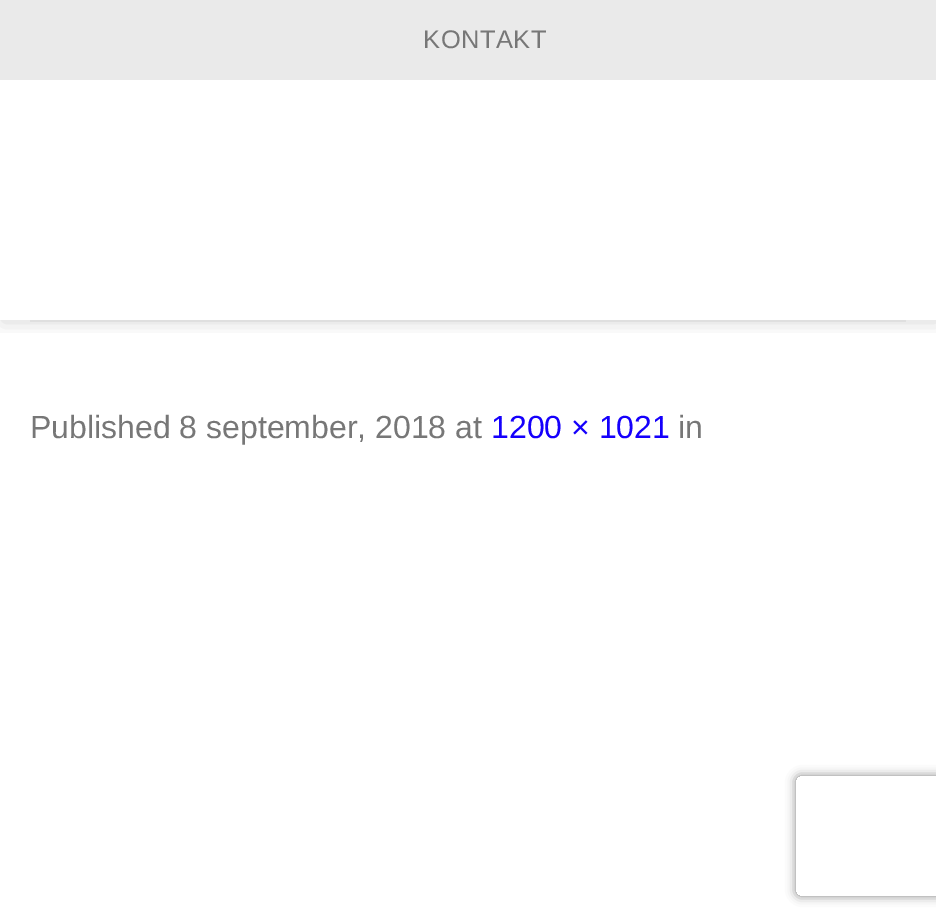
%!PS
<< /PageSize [936 924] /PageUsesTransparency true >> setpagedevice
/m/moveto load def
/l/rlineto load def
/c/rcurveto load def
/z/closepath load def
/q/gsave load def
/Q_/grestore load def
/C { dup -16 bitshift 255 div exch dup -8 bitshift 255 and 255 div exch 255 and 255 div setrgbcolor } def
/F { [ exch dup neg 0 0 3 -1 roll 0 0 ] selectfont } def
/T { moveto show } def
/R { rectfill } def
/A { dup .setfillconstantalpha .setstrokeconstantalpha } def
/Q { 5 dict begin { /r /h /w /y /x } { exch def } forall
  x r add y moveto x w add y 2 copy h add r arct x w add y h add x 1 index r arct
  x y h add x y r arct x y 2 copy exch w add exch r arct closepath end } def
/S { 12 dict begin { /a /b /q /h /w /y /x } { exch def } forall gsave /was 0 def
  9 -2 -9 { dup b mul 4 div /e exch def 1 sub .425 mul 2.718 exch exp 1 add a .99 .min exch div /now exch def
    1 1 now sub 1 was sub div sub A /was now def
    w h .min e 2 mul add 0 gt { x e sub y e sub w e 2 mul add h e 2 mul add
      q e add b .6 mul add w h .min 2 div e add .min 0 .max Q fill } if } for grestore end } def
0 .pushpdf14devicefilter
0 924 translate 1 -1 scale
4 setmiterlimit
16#FFFFFF C
0 0 936 924 R
q
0 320 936 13 rectclip
16#000000 C
2 2 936 320 0 10 .15 S
Q_
16#EAEAEA C
0 0 936 80 R
/LiberationSans-Regular 25.5 F
16#777777 C
423 48 m .5 0 (KONTAKT) ashow
16#DFDFDF C
30 320 876 2 R
/LiberationSans-Regular 32 F
16#777777 C
(Published 8 september, 2018 at) 30 438 T
16#1500FC C
(1200 × 1021) 491 438 T
16#777777 C
(in) 678 438 T
q
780 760 m 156 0 l 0 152 l -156 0 l z 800 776 m 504 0 l 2 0 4 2 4 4 c 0 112 l 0 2 -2 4 -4 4 c -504 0 l -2 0 -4 -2 -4 -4 c 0 -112 l 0 -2 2 -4 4 -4 c z eoclip newpath
16#808080 C
796 776 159 120 4 5 1 S
Q_
.poppdf14devicefilter showpage
